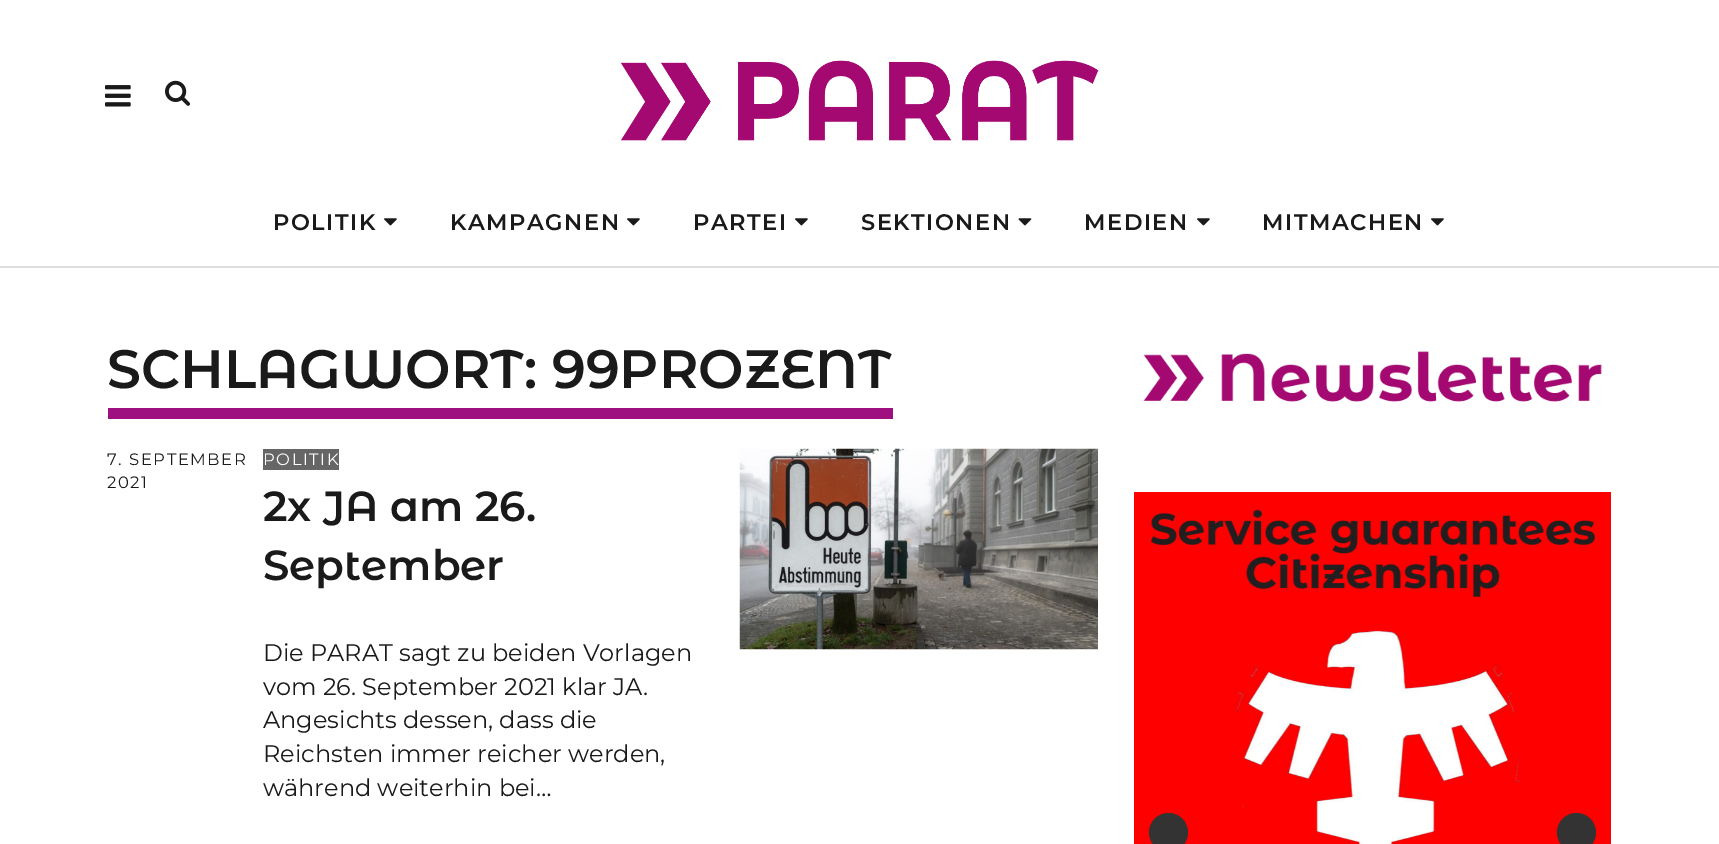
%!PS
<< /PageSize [1719 844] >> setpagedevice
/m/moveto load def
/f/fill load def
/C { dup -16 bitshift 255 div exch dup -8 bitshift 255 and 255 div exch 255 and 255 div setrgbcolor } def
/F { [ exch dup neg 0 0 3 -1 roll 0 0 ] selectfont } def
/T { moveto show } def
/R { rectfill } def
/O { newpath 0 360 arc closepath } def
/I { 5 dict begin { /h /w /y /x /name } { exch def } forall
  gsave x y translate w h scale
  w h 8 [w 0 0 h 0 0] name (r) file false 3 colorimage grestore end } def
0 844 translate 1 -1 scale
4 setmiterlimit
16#FFFFFF C
0 0 1719 844 R
16#DDDDDD C
0 266 1719 2 R
(1.rgb) 105 85 26 22 I
(2.rgb) 620 60 479 81 I
(3.rgb) 165 80 25 26 I
/Montserrat-SemiBold 22.5 F
16#1A1A1A C
273 230 m 1.5 0 (POLITIK) ashow
(4.rgb) 384 218 13 8 I
450 230 m 1.5 0 (KAMPAGNEN) ashow
(4.rgb) 627 218 13 8 I
693 230 m 1.5 0 (PARTEI) ashow
(4.rgb) 795 218 13 8 I
861 230 m 1.5 0 (SEKTIONEN) ashow
(5.rgb) 1018 218 14 8 I
1084 230 m 1.5 0 (MEDIEN) ashow
(4.rgb) 1197 218 13 8 I
1262 230 m 1.5 0 (MITMACHEN) ashow
(4.rgb) 1431 218 13 8 I
16#9E0F7F C
108 408 785 11 R
/MontserratAlternates-SemiBold 54 F
16#1A1A1A C
(SCHLAGWORT: 99PROZENT) 107 388 T
/Montserrat-Regular 16.5 F
107 465 m 1.5 0 (7. SEPTEMBER) ashow
107 488 m 1.5 0 (2021) ashow
16#666666 C
263 449 76 21 R
16#FFFFFF C
263 465 m 1.5 0 (POLITIK) ashow
/MontserratAlternates-SemiBold 42 F
16#1A1A1A C
(2x JA am 26.) 263 521 T
(September) 263 580 T
/Montserrat-Regular 24 F
(Die PARAT sagt zu beiden Vorlagen) 263 661 T
(vom 26. September 2021 klar JA.) 263 695 T
(Angesichts dessen, dass die) 263 728 T
(Reichsten immer reicher werden,) 263 762 T
(während weiterhin bei…) 263 796 T
(6.rgb) 739 448 359 202 I
(7.rgb) 1143 351 459 51 I
(8.rgb) 1134 492 477 352 I
16#333333 C
1168.5 832.5 19.5 O f
1576.5 832.5 19.5 O f
showpage
